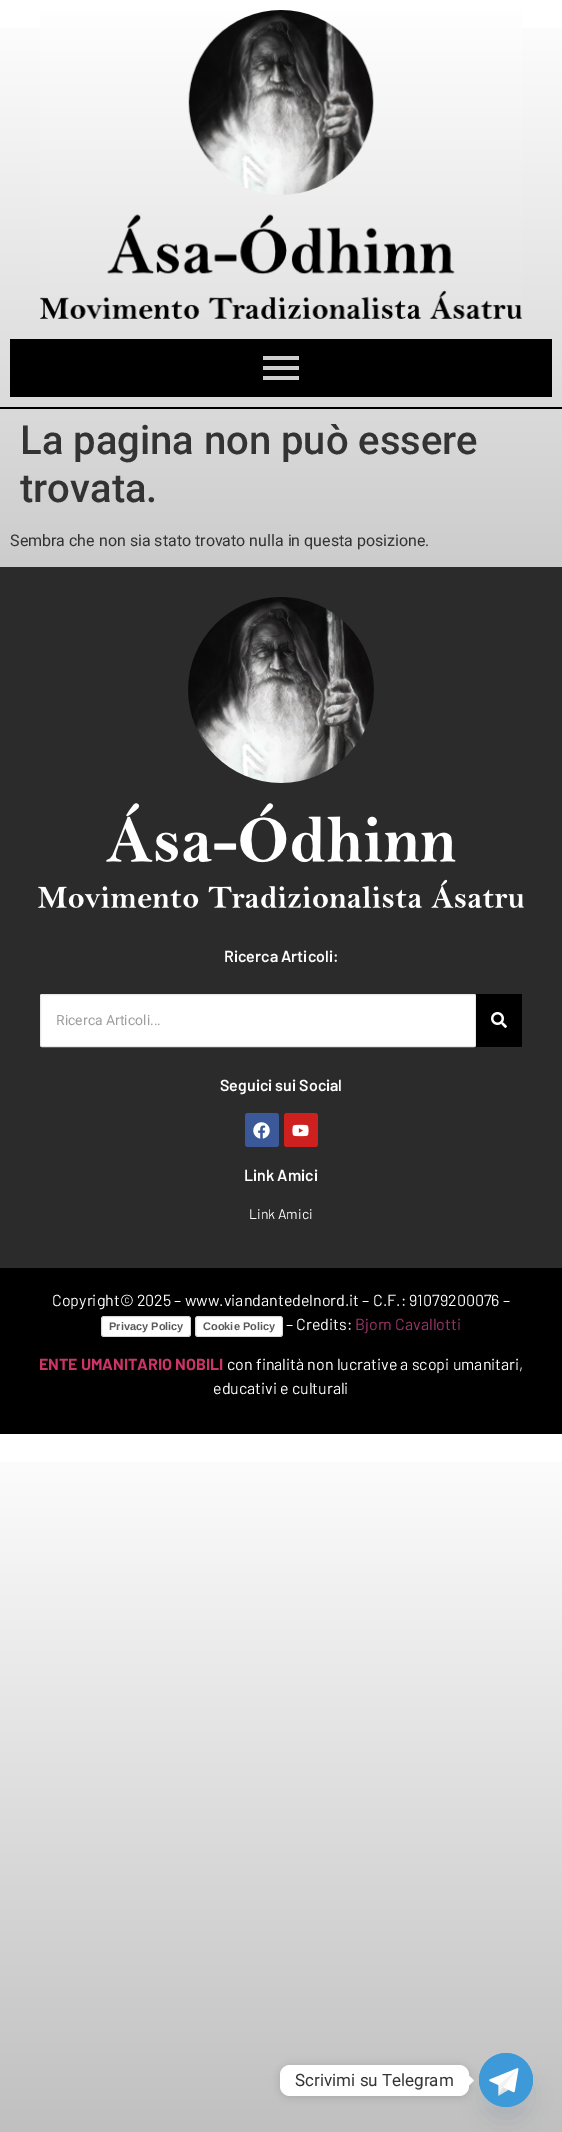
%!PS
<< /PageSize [562 2132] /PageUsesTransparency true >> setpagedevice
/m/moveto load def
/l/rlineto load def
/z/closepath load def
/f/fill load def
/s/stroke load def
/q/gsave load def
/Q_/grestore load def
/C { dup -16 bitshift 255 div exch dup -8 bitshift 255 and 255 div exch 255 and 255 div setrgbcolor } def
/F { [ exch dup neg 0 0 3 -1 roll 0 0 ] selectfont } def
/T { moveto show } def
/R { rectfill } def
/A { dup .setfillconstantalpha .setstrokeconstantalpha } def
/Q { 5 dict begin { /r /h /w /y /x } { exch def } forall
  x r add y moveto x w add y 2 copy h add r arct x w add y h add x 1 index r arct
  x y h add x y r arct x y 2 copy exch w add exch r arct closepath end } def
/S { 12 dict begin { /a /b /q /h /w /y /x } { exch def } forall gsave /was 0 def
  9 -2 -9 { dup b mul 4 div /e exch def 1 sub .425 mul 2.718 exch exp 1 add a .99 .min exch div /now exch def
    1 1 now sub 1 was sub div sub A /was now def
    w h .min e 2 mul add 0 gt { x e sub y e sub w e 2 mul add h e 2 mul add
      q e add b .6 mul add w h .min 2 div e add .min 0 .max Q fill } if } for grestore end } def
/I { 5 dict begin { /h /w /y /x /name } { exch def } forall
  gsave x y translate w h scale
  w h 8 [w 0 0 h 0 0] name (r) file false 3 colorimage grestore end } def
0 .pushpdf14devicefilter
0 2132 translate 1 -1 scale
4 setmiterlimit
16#FFFFFF C
0 0 562 2132 R
q 0 28 m 562 0 l 0 539 l -562 0 l z clip newpath
<< /ShadingType 2 /ColorSpace /DeviceRGB /Coords [281 0 281 1434] /Extend [true true] /Function << /FunctionType 2 /Domain [0 1] /C0 [1 1 1] /C1 [.494 .494 .494] /N 1 >> >> shfill Q_
q 0 1462 m 562 0 l 0 670 l -562 0 l z clip newpath
<< /ShadingType 2 /ColorSpace /DeviceRGB /Coords [281 1434 281 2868] /Extend [true true] /Function << /FunctionType 2 /Domain [0 1] /C0 [1 1 1] /C1 [.494 .494 .494] /N 1 >> >> shfill Q_
16#000000 C
0 407 562 2 R
(1.rgb) 40 10 482 309 I
10 339 542 58 R
16#CECECE C
263 356 36 4 R
263 366 36 4 R
263 376 36 4 R
/Roboto-Medium 40 F
16#333333 C
(La pagina non può essere) 20 454 T
(trovata.) 20 502 T
/Roboto-Regular 16 F
(Sembra che non sia stato trovato nulla in questa posizione.) 10 546 T
16#2B2B2B C
0 567 562 701 R
(2.rgb) 38 597 486 311 I
/Barlow-SemiBold 16 F
16#FFFFFF C
(Ricerca Articoli:) 224 962 T
40.5 994.5 435 52 1.5 Q q f Q_
16#E8E8E8 C
s
/Roboto-Regular 14 F
16#9E9E9E C
(Ricerca Articoli...) 56 1025 T
16#000000 C
476 994 46 53 R
(3.rgb) 491 1012 16 16 I
/Barlow-SemiBold 16 F
16#FFFFFF C
(Seguici sui Social) 220 1091 T
16#3B5998 C
245 1113 34 34 3 Q f
(4.rgb) 253 1122 17 17 I
16#CD201F C
284 1113 34 34 3 Q f
(5.rgb) 292 1124 17 13 I
16#FFFFFF C
(Link Amici) 244 1181 T
/Barlow-Regular 14 F
(Link Amici) 249 1219 T
16#000000 C
0 1268 562 166 R
/Barlow-Regular 16 F
16#FFFFFF C
(Copyright© 2025 – www.viandantedelnord.it – C.F.: 91079200076 –) 52 1306 T
101 1316 90 21 3 Q f
0.15 A
16#000000 C
101.5 1316.5 89 20 2.5 Q s
/LiberationSans-Bold 11 F
1 A
16#595959 C
(Privacy Policy) 109 1330 T
16#FFFFFF C
195 1316 88 21 3 Q f
0.15 A
16#000000 C
195.5 1316.5 87 20 2.5 Q s
1 A
16#595959 C
(Cookie Policy) 203 1330 T
/Barlow-Regular 16 F
16#FFFFFF C
(– Credits:) 286 1330 T
16#993366 C
(Bjorn Cavallotti) 355 1330 T
/Barlow-Bold 16 F
16#CC3366 C
(ENTE UMANITARIO NOBILI) 39 1370 T
/Barlow-Regular 16 F
16#FFFFFF C
(con finalità non lucrative a scopi umanitari,) 227 1370 T
(educativi e culturali) 213 1394 T
16#49687E C
479 2069 54 54 27 12 .16 S
(6.rgb) 479 2053 54 54 I
16#000000 C
280 2066 189 31 10 4 .15 S
16#FFFFFF C
280 2065 189 31 10 Q f
/Roboto-Regular 17 F
16#333333 C
(Scrivimi su Telegram) 295 2086 T
16#FFFFFF C
469 2085.5 m 0 -10 l 5 5 l z f
.poppdf14devicefilter showpage
